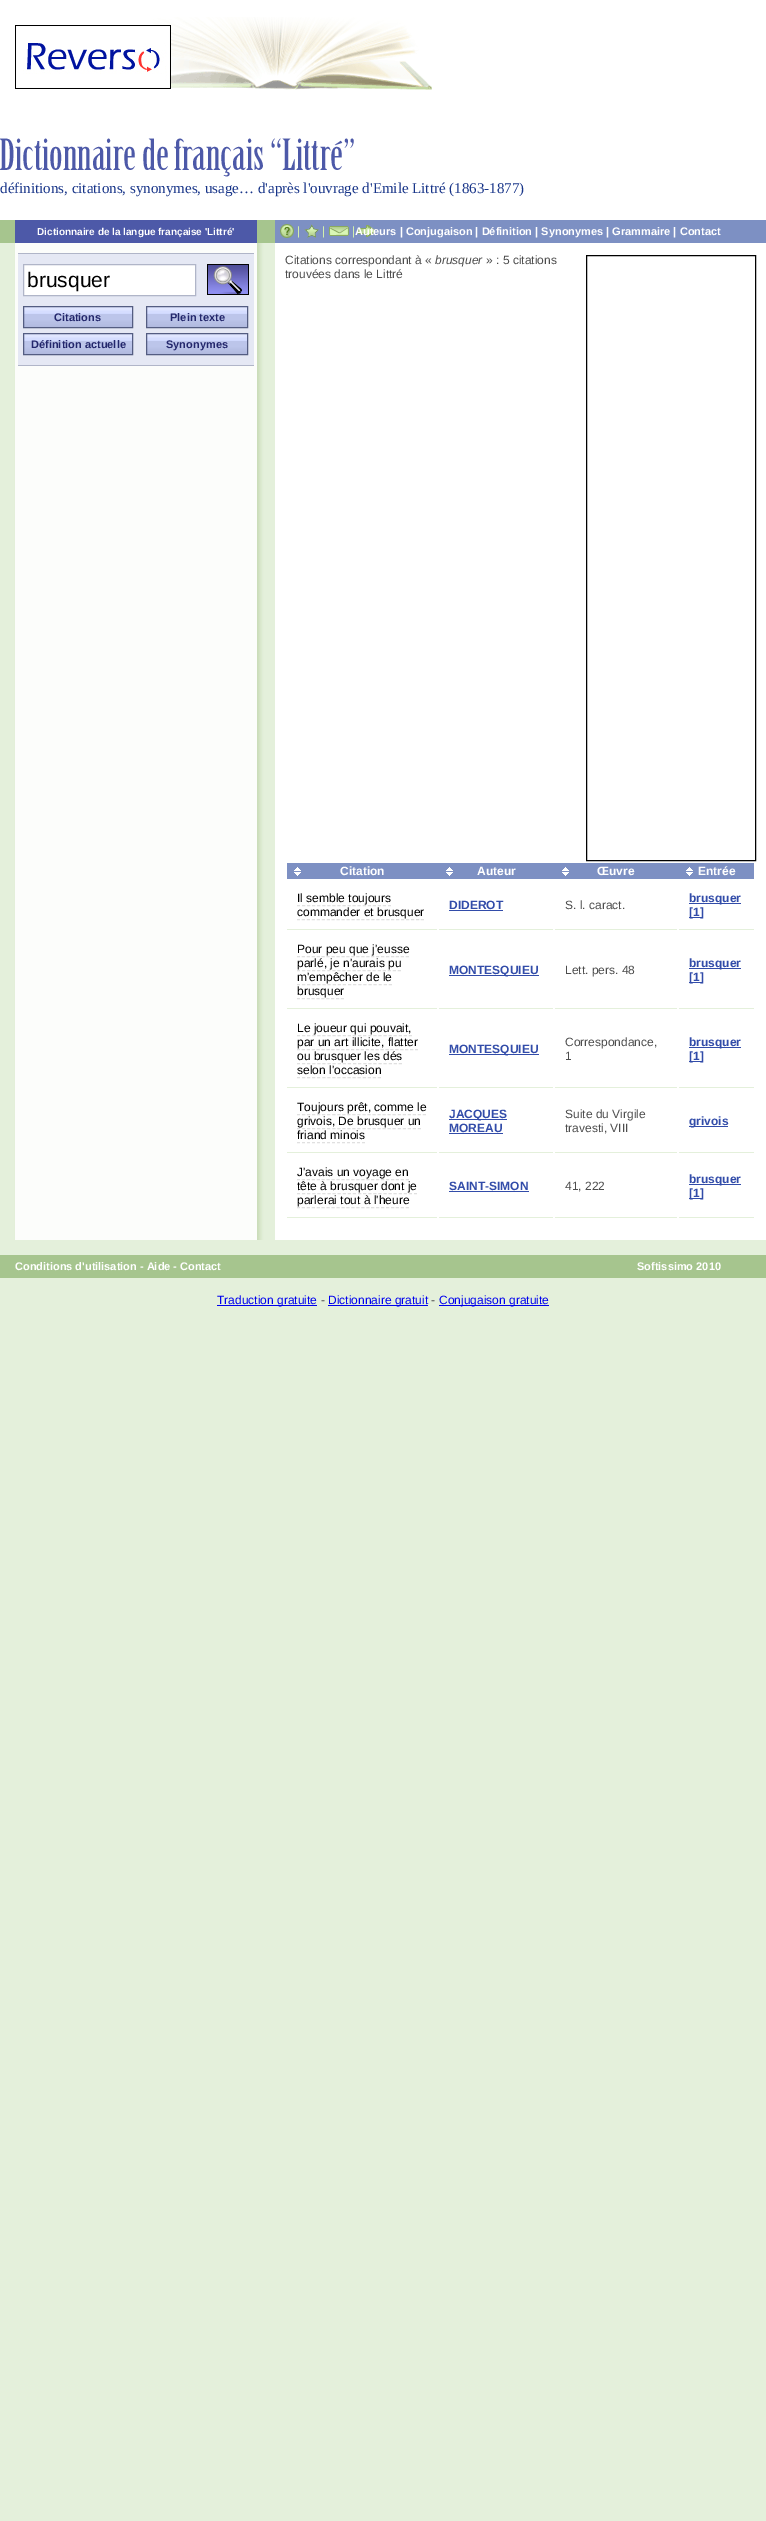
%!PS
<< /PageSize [766 2521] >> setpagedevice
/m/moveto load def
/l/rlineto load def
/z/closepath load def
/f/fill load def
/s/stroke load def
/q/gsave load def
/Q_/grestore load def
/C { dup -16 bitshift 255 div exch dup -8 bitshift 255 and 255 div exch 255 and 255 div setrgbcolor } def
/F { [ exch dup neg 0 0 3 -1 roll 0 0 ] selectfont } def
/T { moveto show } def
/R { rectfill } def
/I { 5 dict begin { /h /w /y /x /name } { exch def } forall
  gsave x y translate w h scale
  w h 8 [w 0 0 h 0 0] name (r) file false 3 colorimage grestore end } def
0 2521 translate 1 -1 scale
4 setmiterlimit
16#E4F0DB C
0 0 766 2521 R
16#FFFFFF C
0 0 766 220 R
(1.rgb) 117 17 315 73 I
(2.rgb) 15 25 156 64 I
(3.rgb) 0 138 354 39 I
/LiberationSerif-Regular 15 F
16#183589 C
(définitions, citations, synonymes, usage… d'après l'ouvrage d'Emile Littré \(1863-1877\)) 0 193 T
16#A6C58E C
0 220 275 23 R
16#4D59A8 C
15 220 242 23 R
/LiberationSans-Bold 10 F
16#FFFFFF C
(Dictionnaire de la langue française 'Littré') 37 235 T
16#7D90C3 C
275 220 491 23 R
(4.rgb) 280 224 14 14 I
/LiberationSans-Regular 12 F
16#D2EFAD C
(|) 297 235 T
(5.rgb) 304 224 15 14 I
(|) 322 235 T
(6.rgb) 329 226 20 10 I
(|) 352 235 T
(7.rgb) 358 225 17 12 I
/LiberationSans-Bold 11 F
16#FFFFFF C
(Auteurs | Conjugaison | Définition | Synonymes | Grammaire | Contact) 355 235 T
275 243 491 997 R
(8.rgb) 0 243 275 997 I
16#E5E8F4 C
18 254 236 111 R
16#B0B5C8 C
18 253 236 1 R
18 365 236 1 R
16#FFFFFF C
23.5 264.5 m 172 0 l 0 31 l -172 0 l z q f Q_
16#B0B5C8 C
s
/LiberationSans-Regular 21 F
16#000000 C
(brusquer) 27 287 T
(9.rgb) 207 264 42 31 I
(10.rgb) 24 307 108 20 I
16#545D82 C
23.5 306.5 109 21 rectstroke
/LiberationSans-Bold 11 F
16#23276C C
(Citations) 54 321 T
(11.rgb) 147 307 100 20 I
16#545D82 C
146.5 306.5 101 21 rectstroke
16#23276C C
(Plein texte) 170 321 T
(10.rgb) 24 334 108 20 I
16#545D82 C
23.5 333.5 109 21 rectstroke
16#23276C C
(Définition actuelle) 31 348 T
(11.rgb) 147 334 100 20 I
16#545D82 C
146.5 333.5 101 21 rectstroke
16#23276C C
(Synonymes) 166 348 T
/LiberationSans-Regular 12 F
16#4D4D4D C
(Citations correspondant à «) 285 264 T
/LiberationSans-Italic 12 F
(brusquer) 435 264 T
/LiberationSans-Regular 12 F
(» : 5 citations) 486 264 T
(trouvées dans le Littré) 285 278 T
16#7D90C3 C
287 863 467 16 R
(12.rgb) 294 867 7 9 I
/LiberationSans-Bold 12 F
16#FFFFFF C
(Citation) 340 875 T
(12.rgb) 446 867 7 9 I
(Auteur) 477 875 T
(12.rgb) 562 867 7 9 I
(Œuvre) 597 875 T
(12.rgb) 686 867 7 9 I
(Entrée) 698 875 T
16#E4F0DB C
287 929 150 1 R
/LiberationSans-Regular 12 F
16#000000 C
(Il semble toujours) 297 902 T
16#E0E0E0 C
[3 2.06] 0 setdash
297 905.5 m 94 0 l s
16#000000 C
(commander et brusquer) 297 916 T
16#E0E0E0 C
[3 1.96] 0 setdash
297 919.5 m 127 0 l s
16#E4F0DB C
439 929 114 1 R
/LiberationSans-Bold 12 F
16#324CA9 C
(DIDEROT) 449 909 T
449 910 54 1 R
16#E4F0DB C
555 929 122 1 R
/LiberationSans-Regular 12 F
16#4D4D4D C
(S. l. caract.) 565 909 T
16#E4F0DB C
679 929 75 1 R
16#324CA9 C
689 903 52 1 R
/LiberationSans-Bold 12 F
(brusquer) 689 902 T
689 917 14 1 R
([1]) 689 916 T
16#E4F0DB C
287 1008 150 1 R
/LiberationSans-Regular 12 F
16#000000 C
(Pour peu que j'eusse) 297 953 T
16#E0E0E0 C
[3 1.95] 0 setdash
297 956.5 m 112 0 l s
16#000000 C
(parlé, je n'aurais pu) 297 967 T
16#E0E0E0 C
[3 2.05] 0 setdash
297 970.5 m 104 0 l s
16#000000 C
(m'empêcher de le) 297 981 T
16#E0E0E0 C
[3 2.11] 0 setdash
297 984.5 m 95 0 l s
16#000000 C
(brusquer) 297 995 T
16#E0E0E0 C
[3 1.89] 0 setdash
297 998.5 m 47 0 l s
16#E4F0DB C
439 1008 114 1 R
16#324CA9 C
449 975 90 1 R
/LiberationSans-Bold 12 F
(MONTESQUIEU) 449 974 T
16#E4F0DB C
555 1008 122 1 R
/LiberationSans-Regular 12 F
16#4D4D4D C
(Lett. pers. 48) 565 974 T
16#E4F0DB C
679 1008 75 1 R
16#324CA9 C
689 968 52 1 R
/LiberationSans-Bold 12 F
(brusquer) 689 967 T
689 982 14 1 R
([1]) 689 981 T
16#E4F0DB C
287 1087 150 1 R
/LiberationSans-Regular 12 F
16#000000 C
(Le joueur qui pouvait,) 297 1032 T
16#E0E0E0 C
[3 2.09] 0 setdash
297 1035.5 m 115 0 l s
16#000000 C
(par un art illicite, flatter) 297 1046 T
16#E0E0E0 C
[3 1.92] 0 setdash
297 1049.5 m 121 0 l s
16#000000 C
(ou brusquer les dés) 297 1060 T
16#E0E0E0 C
[3 2.1] 0 setdash
297 1063.5 m 105 0 l s
16#000000 C
(selon l'occasion) 297 1074 T
16#E0E0E0 C
[3 2.06] 0 setdash
297 1077.5 m 84 0 l s
16#E4F0DB C
439 1087 114 1 R
16#324CA9 C
449 1054 90 1 R
/LiberationSans-Bold 12 F
(MONTESQUIEU) 449 1053 T
16#E4F0DB C
555 1087 122 1 R
/LiberationSans-Regular 12 F
16#4D4D4D C
(Correspondance,) 565 1046 T
(1) 565 1060 T
16#E4F0DB C
679 1087 75 1 R
16#324CA9 C
689 1047 52 1 R
/LiberationSans-Bold 12 F
(brusquer) 689 1046 T
689 1061 14 1 R
([1]) 689 1060 T
16#E4F0DB C
287 1152 150 1 R
/LiberationSans-Regular 12 F
16#000000 C
(Toujours prêt, comme le) 297 1111 T
16#E0E0E0 C
[3 2.04] 0 setdash
297 1114.5 m 129 0 l s
16#000000 C
(grivois, De brusquer un) 297 1125 T
16#E0E0E0 C
297 1128.5 m 124 0 l s
16#000000 C
(friand minois) 297 1139 T
16#E0E0E0 C
[3 2] 0 setdash
297 1142.5 m 68 0 l s
16#E4F0DB C
439 1152 114 1 R
16#324CA9 C
449 1119 58 1 R
/LiberationSans-Bold 12 F
(JACQUES) 449 1118 T
(MOREAU) 449 1132 T
449 1133 54 1 R
16#E4F0DB C
555 1152 122 1 R
/LiberationSans-Regular 12 F
16#4D4D4D C
(Suite du Virgile) 565 1118 T
(travesti, VIII) 565 1132 T
16#E4F0DB C
679 1152 75 1 R
16#324CA9 C
689 1126 39 1 R
/LiberationSans-Bold 12 F
(grivois) 689 1125 T
16#E4F0DB C
287 1217 150 1 R
/LiberationSans-Regular 12 F
16#000000 C
(J'avais un voyage en) 297 1176 T
16#E0E0E0 C
[3 1.95] 0 setdash
297 1179.5 m 112 0 l s
16#000000 C
(tête à brusquer dont je) 297 1190 T
16#E0E0E0 C
[3 2.09] 0 setdash
297 1193.5 m 120 0 l s
16#000000 C
(parlerai tout à l'heure) 297 1204 T
16#E0E0E0 C
[3 1.95] 0 setdash
297 1207.5 m 112 0 l s
16#E4F0DB C
439 1217 114 1 R
/LiberationSans-Bold 12 F
16#324CA9 C
(SAINT-SIMON) 449 1190 T
449 1191 80 1 R
16#E4F0DB C
555 1217 122 1 R
/LiberationSans-Regular 12 F
16#4D4D4D C
(41, 222) 565 1190 T
16#E4F0DB C
679 1217 75 1 R
16#324CA9 C
689 1184 52 1 R
/LiberationSans-Bold 12 F
(brusquer) 689 1183 T
689 1198 14 1 R
([1]) 689 1197 T
16#000000 C
[] 0 setdash
586.5 255.5 169 605 rectstroke
16#A6C58E C
0 1255 766 23 R
/LiberationSans-Bold 11 F
16#FFFFFF C
(Conditions d'utilisation - Aide - Contact) 15 1270 T
(Softissimo 2010) 637 1270 T
16#0000EE C
217 1305 100 1 R
/LiberationSans-Regular 12 F
(Traduction gratuite) 217 1304 T
16#4D4D4D C
(-) 321 1304 T
16#0000EE C
328 1305 100 1 R
(Dictionnaire gratuit) 328 1304 T
16#4D4D4D C
(-) 431 1304 T
16#0000EE C
439 1305 110 1 R
(Conjugaison gratuite) 439 1304 T
showpage
